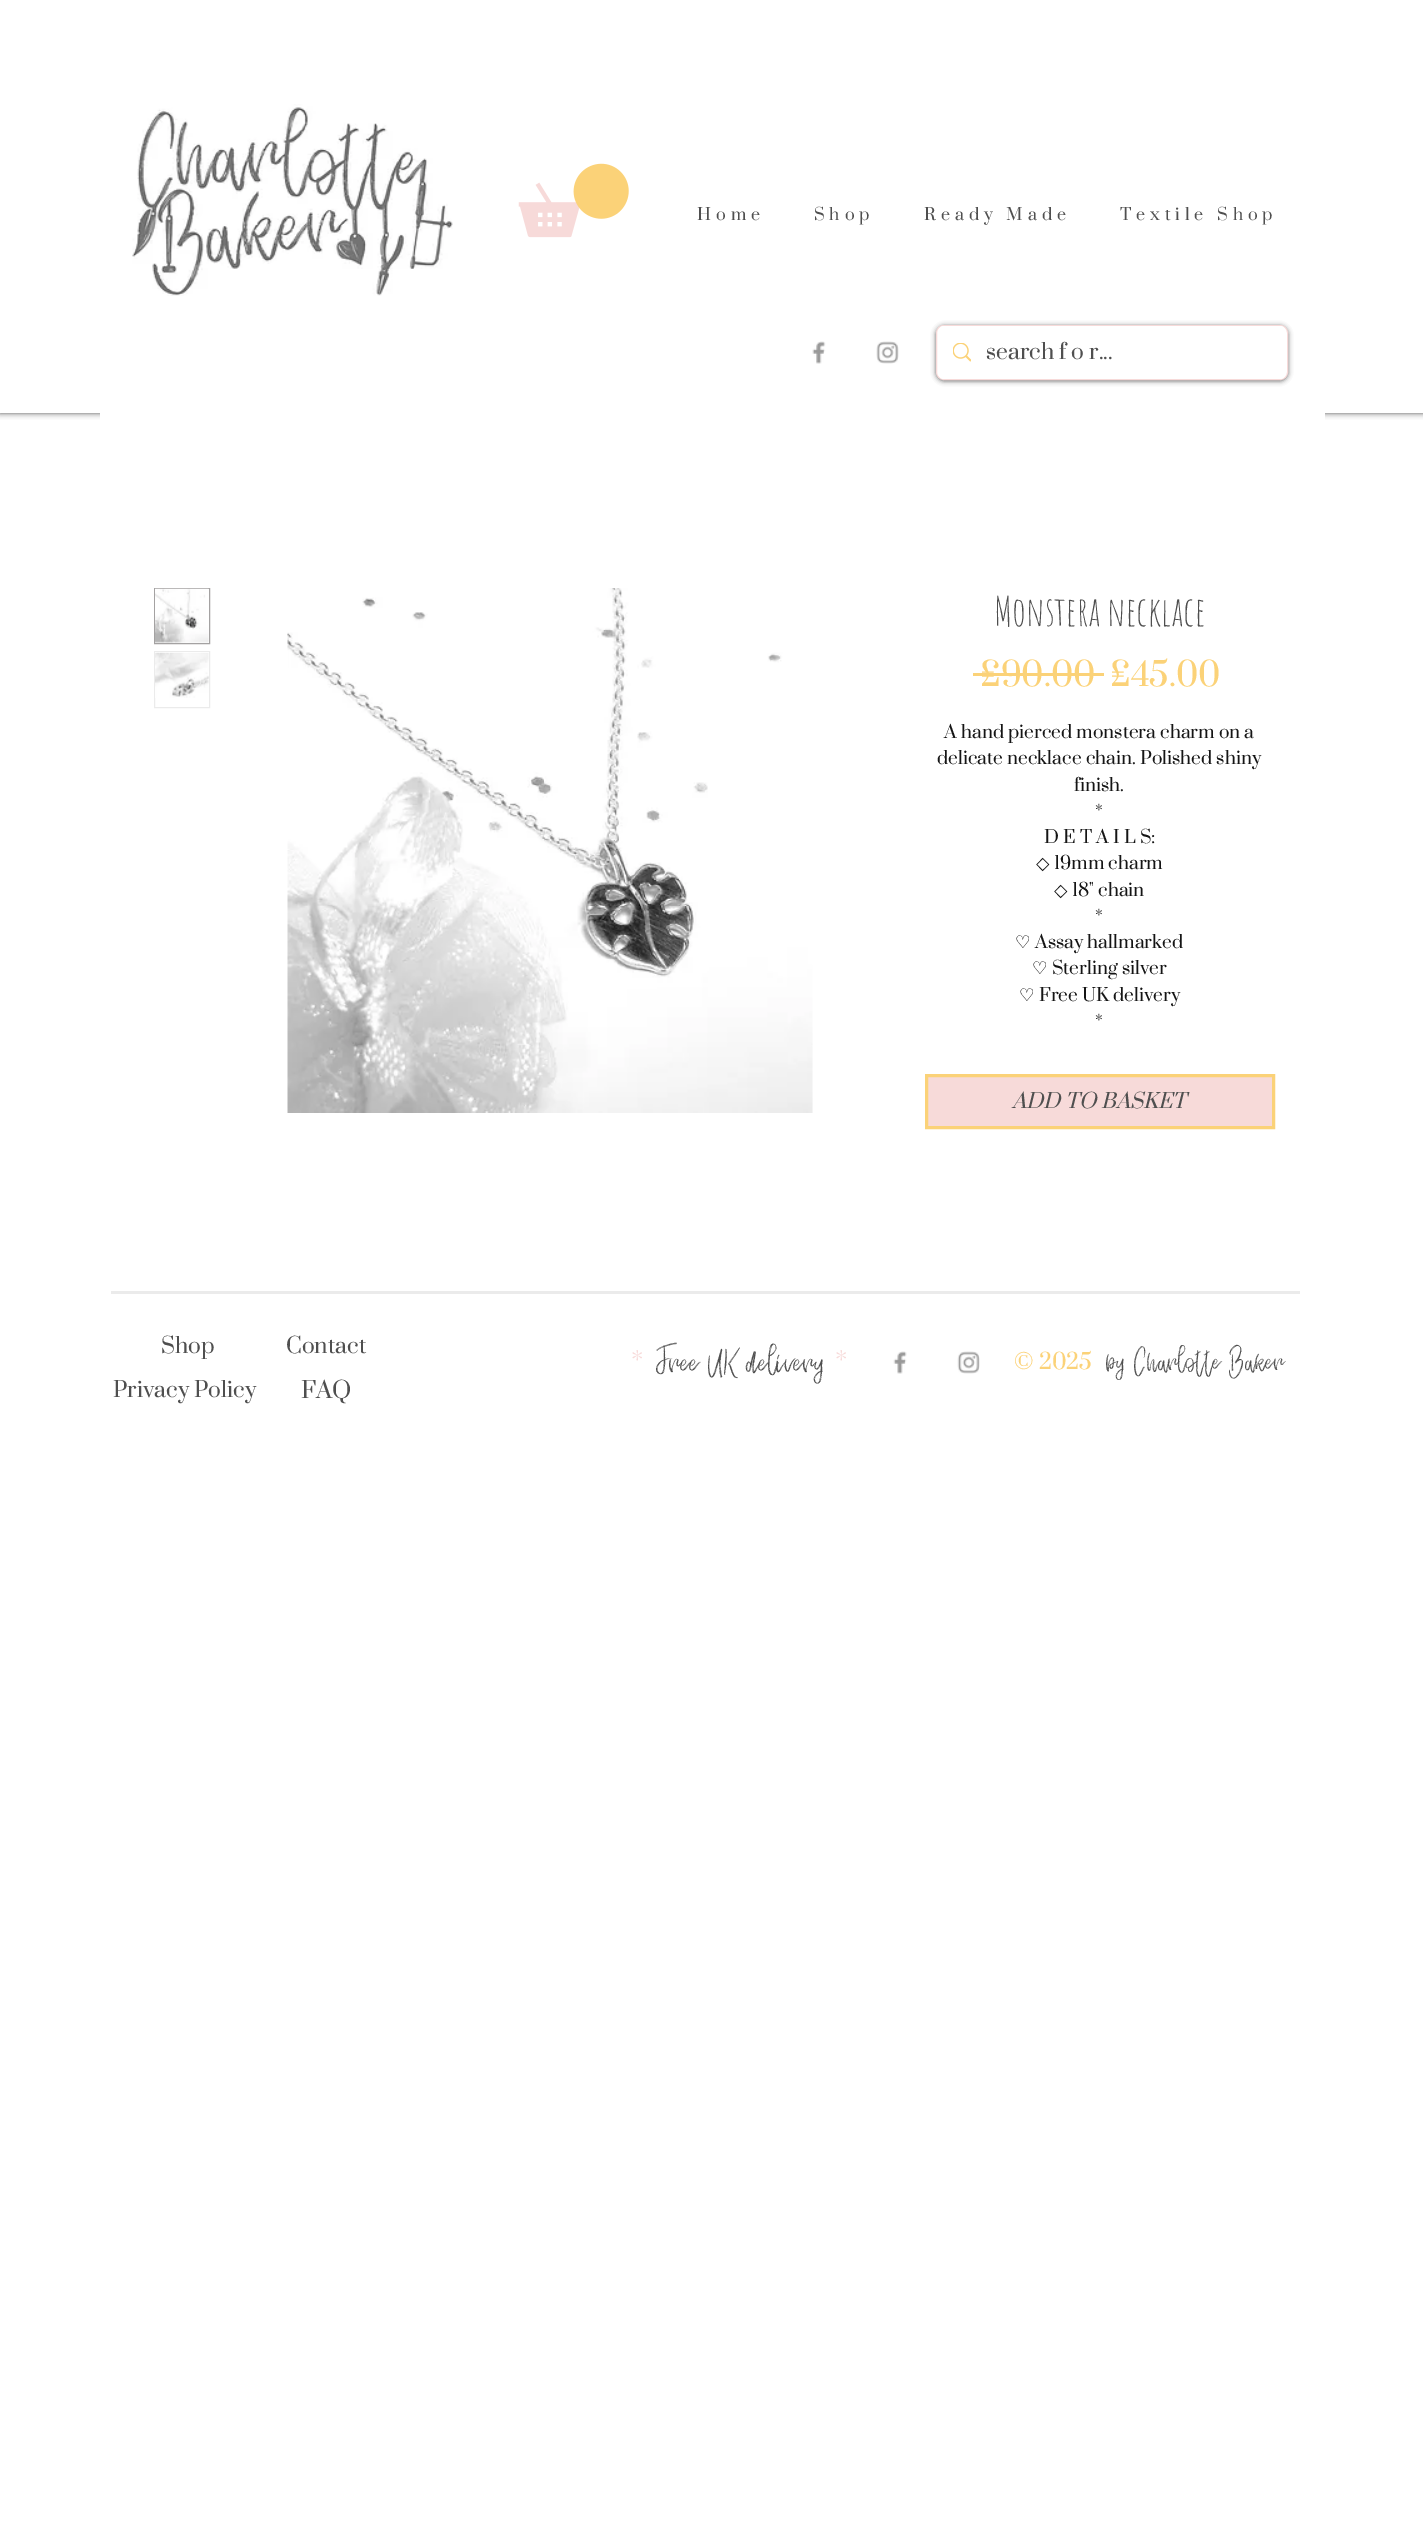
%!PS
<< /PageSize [1423 2542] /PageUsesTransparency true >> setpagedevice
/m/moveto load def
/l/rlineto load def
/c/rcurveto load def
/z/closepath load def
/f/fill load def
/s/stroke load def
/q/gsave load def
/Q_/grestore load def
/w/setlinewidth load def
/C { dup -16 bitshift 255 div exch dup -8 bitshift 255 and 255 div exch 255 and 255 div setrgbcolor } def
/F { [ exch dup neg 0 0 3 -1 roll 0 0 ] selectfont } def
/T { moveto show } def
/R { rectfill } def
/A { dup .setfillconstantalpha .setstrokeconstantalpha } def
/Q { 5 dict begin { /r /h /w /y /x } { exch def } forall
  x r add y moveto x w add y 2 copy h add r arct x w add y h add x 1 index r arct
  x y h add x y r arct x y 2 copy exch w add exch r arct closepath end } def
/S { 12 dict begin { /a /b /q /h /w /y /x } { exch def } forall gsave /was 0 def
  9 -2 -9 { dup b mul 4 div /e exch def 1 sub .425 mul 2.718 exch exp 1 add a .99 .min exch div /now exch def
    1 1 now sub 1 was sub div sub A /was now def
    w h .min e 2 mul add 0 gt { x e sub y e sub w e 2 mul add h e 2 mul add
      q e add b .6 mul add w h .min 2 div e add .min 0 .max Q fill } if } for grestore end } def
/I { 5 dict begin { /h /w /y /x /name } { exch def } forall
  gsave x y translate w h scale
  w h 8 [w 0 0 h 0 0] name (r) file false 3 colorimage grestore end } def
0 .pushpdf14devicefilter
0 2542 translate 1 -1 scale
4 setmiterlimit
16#FFFFFF C
0 0 1423 2542 R
16#000000 C
0 0 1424 413 0 3 .7 S
16#FFFFFF C
0 0 1423 413 R
(1.rgb) 132 104 321 192 I
(2.rgb) 518 163 111 75 I
/Prata-Regular 16.25 F
16#4F4F4F C
697 220 m 4.9 0 (Home) ashow
814 220 m 4.9 0 (Shop) ashow
924 220 m 4.9 0 (Ready Made) ashow
1120 220 m 4.9 0 (Textile Shop) ashow
(3.rgb) 812 341 14 23 I
(4.rgb) 876 341 23 23 I
q
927 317 m 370 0 l 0 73 l -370 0 l z 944 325 m 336 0 l 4.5 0 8 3.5 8 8 c 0 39 l 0 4.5 -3.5 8 -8 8 c -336 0 l -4.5 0 -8 -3.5 -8 -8 c 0 -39 l 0 -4.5 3.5 -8 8 -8 c z eoclip newpath
16#000000 C
936 326 352 55 8 2.5 .6 S
Q_
16#F7DAD9 C
936.5 325.5 351 54 7.5 Q s
16#FFFFFF C
938 326 348 53 6 Q f
(5.rgb) 953 343 18 19 I
/Prata-Regular 21.25 F
16#4F4F4F C
(search f o r...) 986 359 T
16#FFFFFF C
100 413 1225 7 R
16#A4A2A2 C
154.5 588.5 55 55 rectstroke
(6.rgb) 155 588 54 55 I
16#EBEBEB C
154.5 651.5 55 56 rectstroke
(7.rgb) 155 652 54 46 I
(8.rgb) 287 588 526 525 I
/AmaticSC-Regular 40 F
16#4F4F4F C
(Monstera necklace) 994 626 T
/Prata-Regular 32.5 F
16#FBD278 C
(£90.00) 980 686 T
973 673 131 3 R
(£45.00) 1110 686 T
/Prata-Regular 17.5 F
16#151515 C
(A hand pierced monstera charm on a) 944 738 T
(delicate necklace chain. Polished shiny) 937 764 T
(finish.) 1074 791 T
(*) 1095 817 T
(D E T A I L S:) 1044 843 T
/DejaVuSans-Regular 17.5 F
(◇) 1036 869 T
/Prata-Regular 17.5 F
(19mm charm) 1054 869 T
/DejaVuSans-Regular 17.5 F
(◇) 1054 896 T
/Prata-Regular 17.5 F
(18" chain) 1072 896 T
(*) 1095 922 T
/DejaVuSans-Regular 17.5 F
(♡) 1015 948 T
/Prata-Regular 17.5 F
(Assay hallmarked) 1035 948 T
/DejaVuSans-Regular 17.5 F
(♡) 1032 974 T
/Prata-Regular 17.5 F
(Sterling silver) 1052 974 T
/DejaVuSans-Regular 17.5 F
(♡) 1019 1001 T
/Prata-Regular 17.5 F
(Free UK delivery) 1039 1001 T
(*) 1095 1027 T
16#F7DAD9 C
926.5 1075.5 m 347 0 l 0 52 l -347 0 l z q f Q_
16#FBD278 C
3 w
s
/Prata-Italic 20 F
16#4F4F4F C
(ADD TO BASKET) 1012 1108 T
16#EBEBEB C
111 1291 1189 3 R
/Prata-Regular 21.25 F
16#4F4F4F C
(Shop) 161 1353 T
(Contact) 286 1353 T
/Prata-Regular 28 F
16#F7DAD9 C
(*) 631 1371 T
/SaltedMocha-Regular 30 F
16#4F4F4F C
(Free UK delivery) 656 1371 T
/Prata-Regular 28 F
16#F7DAD9 C
(*) 835 1371 T
(9.rgb) 893 1351 14 23 I
(10.rgb) 957 1351 23 23 I
/Prata-Regular 21.25 F
16#FBD278 C
(© 2025) 1014 1369 T
/SaltedMocha-Regular 26.25 F
16#4F4F4F C
(by Charlotte Baker) 1105 1369 T
/Prata-Regular 21.25 F
(Privacy Policy) 113 1397 T
/Prata-Regular 22.5 F
(FAQ) 301 1398 T
.poppdf14devicefilter showpage
